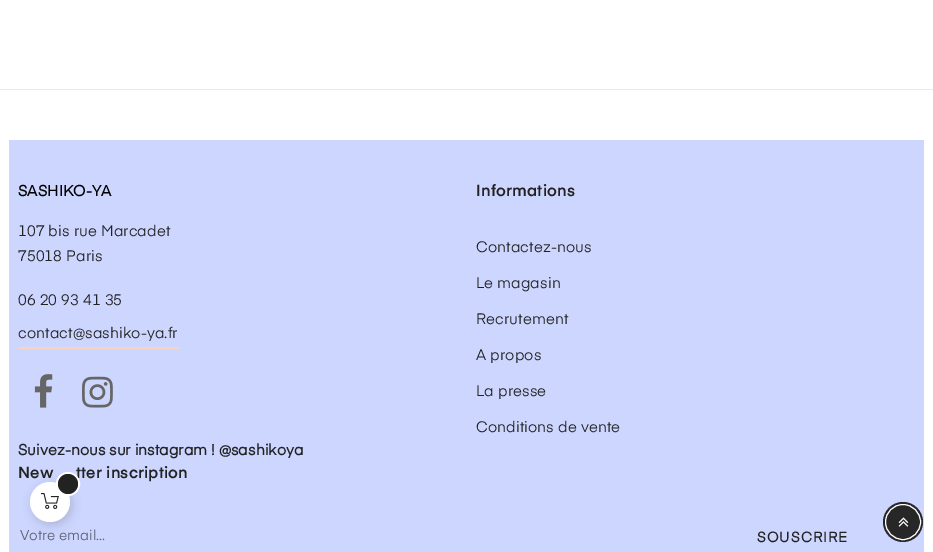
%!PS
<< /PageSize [933 552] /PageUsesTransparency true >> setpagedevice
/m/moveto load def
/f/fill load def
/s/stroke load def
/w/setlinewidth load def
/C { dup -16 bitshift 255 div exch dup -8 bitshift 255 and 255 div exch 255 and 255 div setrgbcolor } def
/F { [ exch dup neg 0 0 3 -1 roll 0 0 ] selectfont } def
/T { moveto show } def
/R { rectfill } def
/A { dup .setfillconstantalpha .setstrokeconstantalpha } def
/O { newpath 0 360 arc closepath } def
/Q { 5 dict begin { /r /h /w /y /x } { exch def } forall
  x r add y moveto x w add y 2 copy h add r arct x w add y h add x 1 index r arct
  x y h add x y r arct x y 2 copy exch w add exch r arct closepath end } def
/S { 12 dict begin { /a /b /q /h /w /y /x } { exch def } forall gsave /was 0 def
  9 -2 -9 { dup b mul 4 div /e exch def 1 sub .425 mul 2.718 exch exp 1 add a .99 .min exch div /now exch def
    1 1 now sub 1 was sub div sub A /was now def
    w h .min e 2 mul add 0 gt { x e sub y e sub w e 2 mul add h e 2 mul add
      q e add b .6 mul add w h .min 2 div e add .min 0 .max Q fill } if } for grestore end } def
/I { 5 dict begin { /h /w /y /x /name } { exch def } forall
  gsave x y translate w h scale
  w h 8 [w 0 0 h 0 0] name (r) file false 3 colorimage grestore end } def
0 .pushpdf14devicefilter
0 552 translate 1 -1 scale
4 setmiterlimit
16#FFFFFF C
0 0 933 552 R
16#EAEAEA C
0 89 933 1 R
16#CDD6FF C
9 140 915 412 R
/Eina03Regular-Bold 15 F
16#000000 C
(SASHIKO-YA) 18 196 T
/Eina03Regular-Regular 15 F
16#222222 C
18 236 m .1 0 (107 bis rue Marcadet) ashow
18 261 m .1 0 (75018 Paris) ashow
18 305 m .1 0 (06 20 93 41 35) ashow
16#F9D4BD C
18 347 161 2 R
16#222222 C
18 338 m .1 0 (contact@sashiko-ya.fr) ashow
(1.rgb) 34 374 19 34 I
(2.rgb) 82 376 31 32 I
/Eina03Regular-Bold 15 F
(Suivez-nous sur instagram ! @sashikoya) 18 455 T
/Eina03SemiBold-SemiBold 16 F
476 196 m .2 0 (Informations) ashow
/Eina03Regular-Regular 15 F
476 252 m .1 0 (Contactez-nous) ashow
476 288 m .1 0 (Le magasin) ashow
476 324 m .1 0 (Recrutement) ashow
476 360 m .1 0 (A propos) ashow
476 396 m .1 0 (La presse) ashow
476 432 m .1 0 (Conditions de vente) ashow
/Eina03SemiBold-SemiBold 16 F
18 478 m .2 0 (New) ashow
76 478 m .2 0 (tter inscription) ashow
/Eina03Regular-Regular 14 F
16#5E6275 C
(Votre email...) 20 540 T
/Eina03Regular-Bold 14 F
16#222222 C
757 542 m 1 0 (SOUSCRIRE) ashow
16#272727 C
903 522 20 O f
16#FFFFFF C
903 522 17.5 O s
(3.rgb) 898 517 11 10 I
16#000000 C
32 485 40 40 20 5 .15 S
16#FFFFFF C
50 502 20 O f
(4.rgb) 41 493 18 16 I
2 w
68 484 11 O s
16#222222 C
68 484 10 O f
.poppdf14devicefilter showpage
